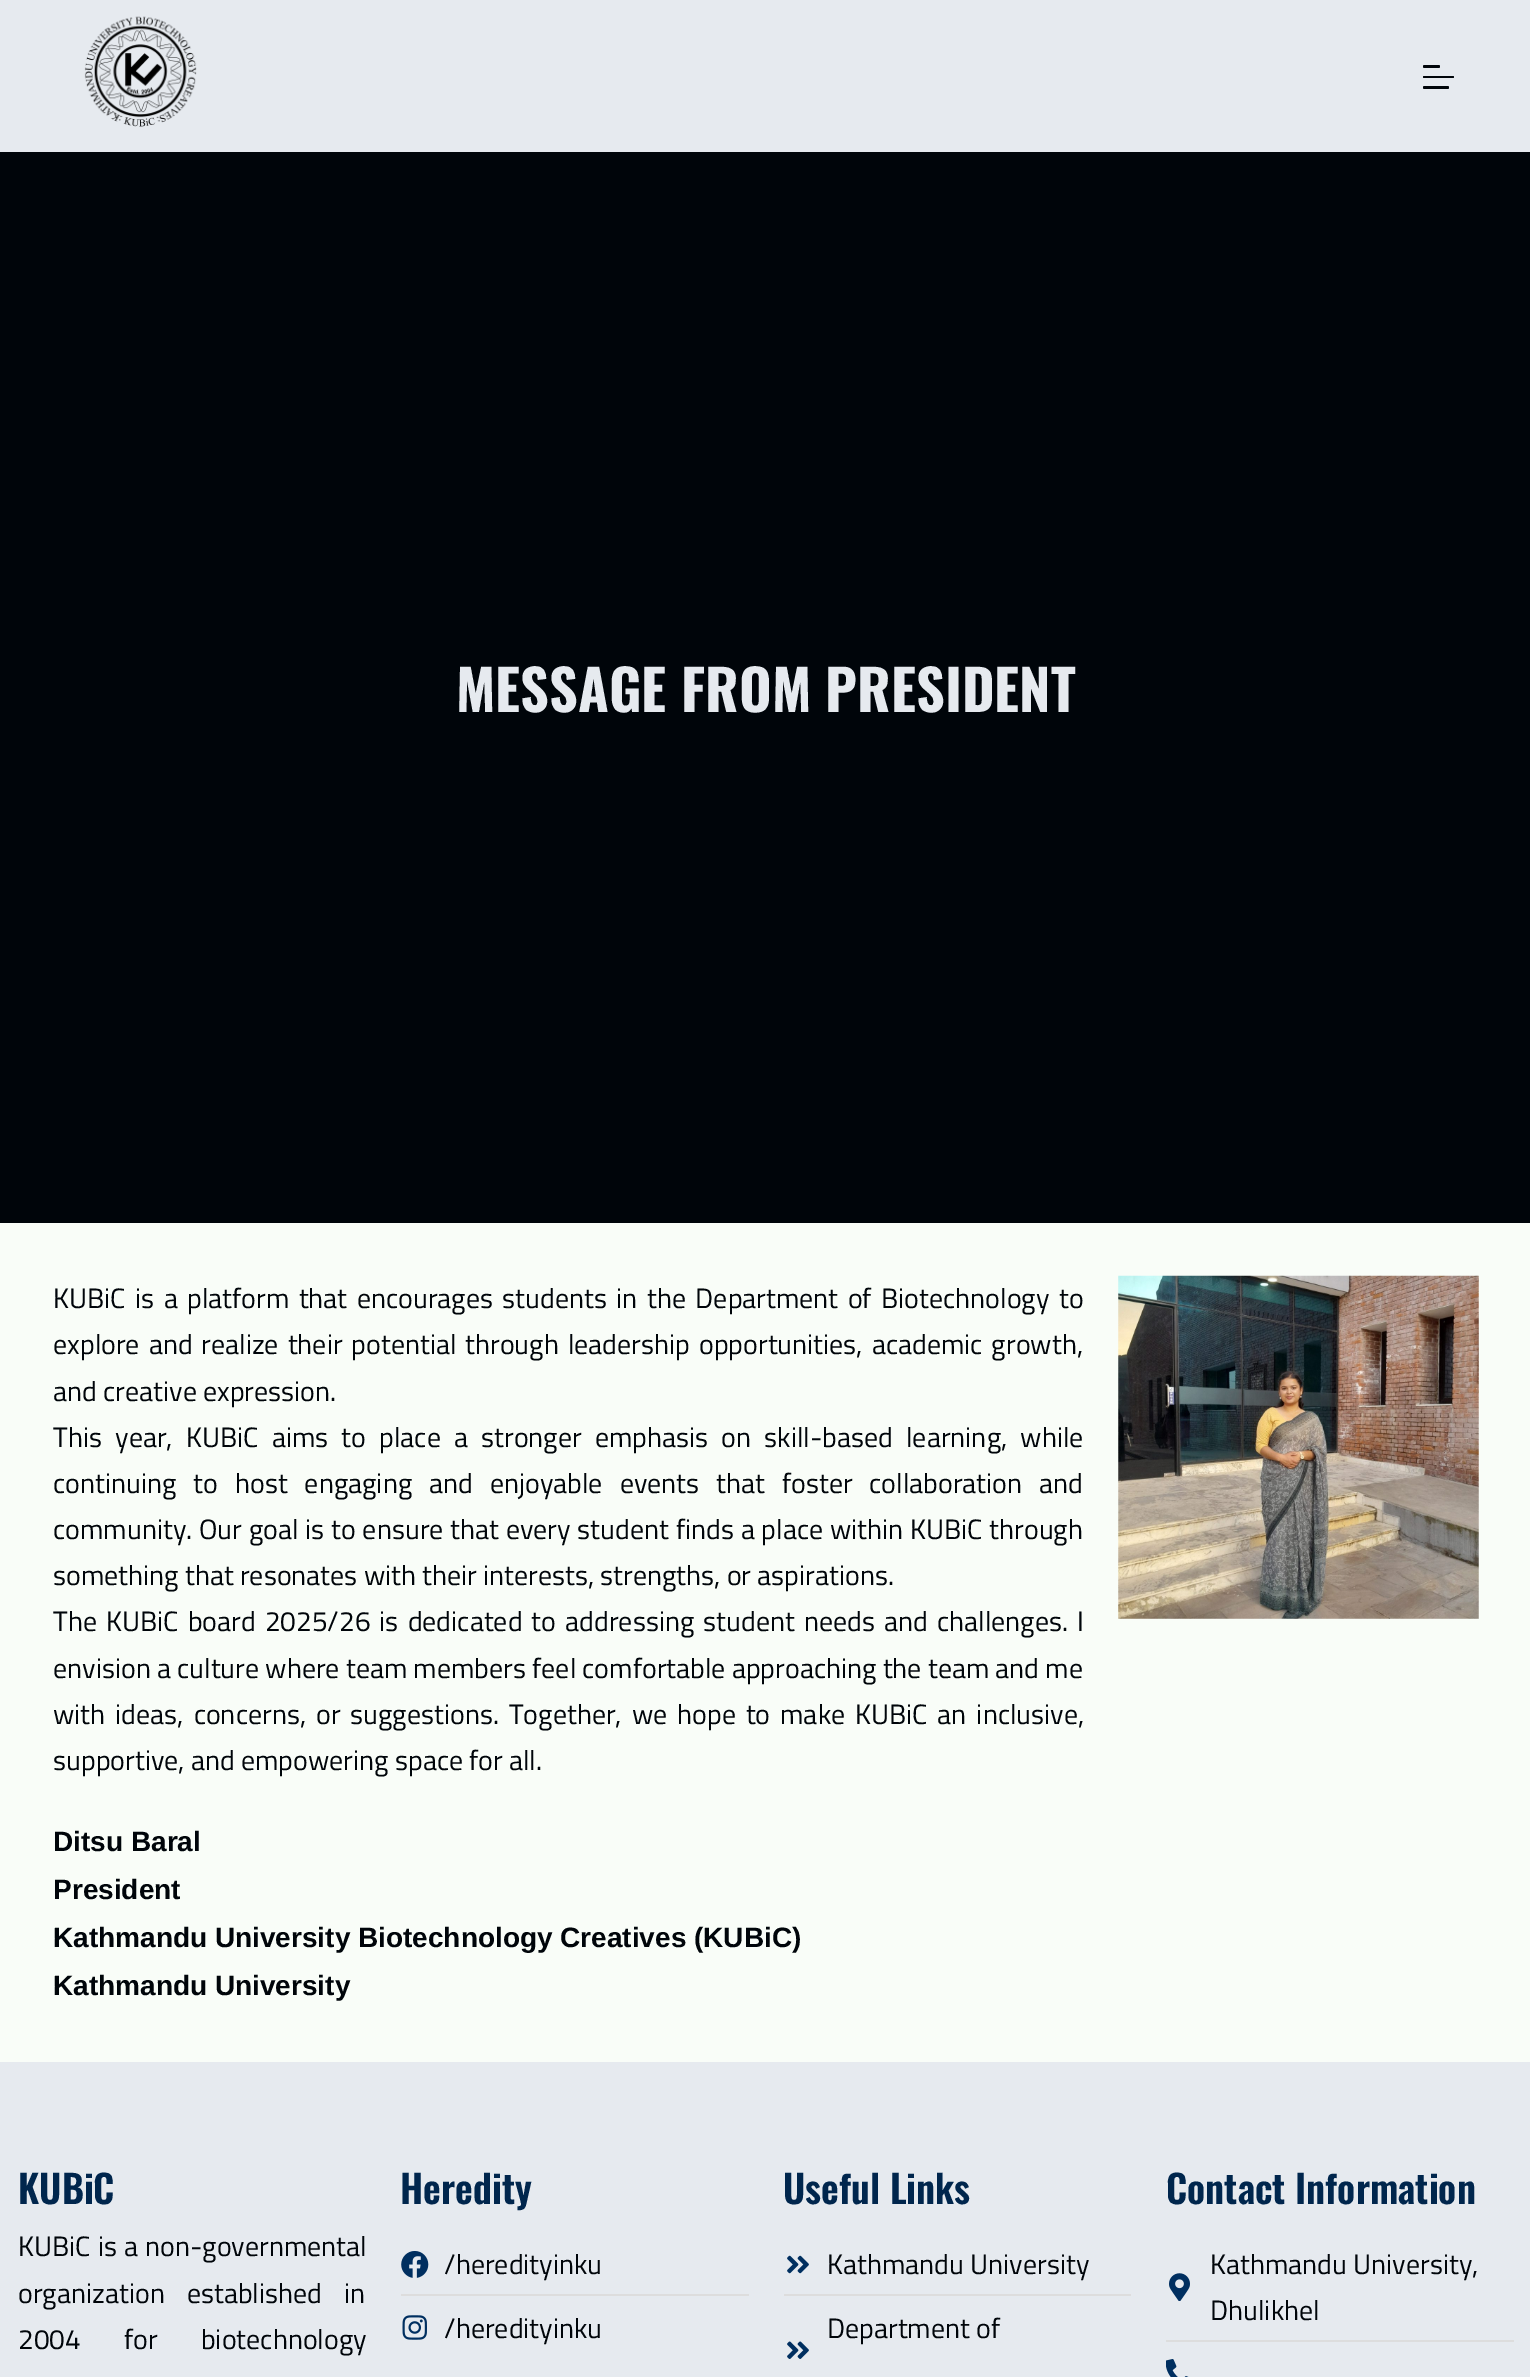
%!PS
<< /PageSize [1530 2377] >> setpagedevice
/m/moveto load def
/f/fill load def
/C { dup -16 bitshift 255 div exch dup -8 bitshift 255 and 255 div exch 255 and 255 div setrgbcolor } def
/F { [ exch dup neg 0 0 3 -1 roll 0 0 ] selectfont } def
/T { moveto show } def
/R { rectfill } def
/Q { 5 dict begin { /r /h /w /y /x } { exch def } forall
  x r add y moveto x w add y 2 copy h add r arct x w add y h add x 1 index r arct
  x y h add x y r arct x y 2 copy exch w add exch r arct closepath end } def
/I { 5 dict begin { /h /w /y /x /name } { exch def } forall
  gsave x y translate w h scale
  w h 8 [w 0 0 h 0 0] name (r) file false 3 colorimage grestore end } def
0 2377 translate 1 -1 scale
4 setmiterlimit
16#F9FDF8 C
0 0 1530 2377 R
16#E6EAEF C
0 0 1530 152 R
(1.rgb) 84 16 113 111 I
16#00050A C
1423 65 17 3 1.5 Q f
1423 76 31 2 1 Q f
1423 86 26 3 1.5 Q f
0 152 1530 1071 R
/Oswald-Bold 56 F
16#E6EAEF C
(MESSAGE FROM PRESIDENT) 456 712 T
/TitilliumWeb-Regular 28 F
16#00050A C
53 1308 m 3.25 0 32 (KUBiC is a platform that encourages students in the Department of Biotechnology to) widthshow
53 1354 m 2.75 0 32 (explore and realize their potential through leadership opportunities, academic growth,) widthshow
(and creative expression.) 53 1401 T
53 1447 m 7 0 32 (This year, KUBiC aims to place a stronger emphasis on skill-based learning, while) widthshow
53 1493 m 10.75 0 32 (continuing to host engaging and enjoyable events that foster collaboration and) widthshow
53 1539 m .6 0 32 (community. Our goal is to ensure that every student finds a place within KUBiC through) widthshow
(something that resonates with their interests, strengths, or aspirations.) 53 1585 T
53 1631 m 2.9 0 32 (The KUBiC board 2025/26 is dedicated to addressing student needs and challenges. I) widthshow
(envision a culture where team members feel comfortable approaching the team and me) 53 1678 T
53 1724 m 3.75 0 32 (with ideas, concerns, or suggestions. Together, we hope to make KUBiC an inclusive,) widthshow
(supportive, and empowering space for all.) 53 1770 T
/LiberationSans-Bold 28 F
(Ditsu Baral) 53 1851 T
(President) 53 1899 T
(Kathmandu University Biotechnology Creatives \(KUBiC\)) 53 1947 T
(Kathmandu University) 53 1995 T
(2.rgb) 1118 1275 361 344 I
16#E6EAEF C
0 2062 1530 315 R
/Oswald-SemiBold 38.5 F
16#00264D C
(KUBiC) 18 2204 T
/TitilliumWeb-Regular 28 F
16#00050A C
18 2256 m 1 0 32 (KUBiC is a non-governmental) widthshow
18 2303 m 16 0 32 (organization established in) widthshow
18 2349 m 37 0 32 (2004 for biotechnology) widthshow
/Oswald-SemiBold 38.5 F
16#00264D C
(Heredity) 400 2204 T
(3.rgb) 401 2251 28 27 I
/TitilliumWeb-Regular 28 F
16#00050A C
(/heredityinku) 444 2274 T
16#DDDDDD C
401 2294 348 2 R
(4.rgb) 402 2315 25 25 I
16#00050A C
(/heredityinku) 444 2338 T
/Oswald-SemiBold 38.5 F
16#00264D C
(Useful Links) 783 2204 T
(5.rgb) 787 2255 22 19 I
/TitilliumWeb-Regular 28 F
16#00050A C
(Kathmandu University) 827 2274 T
16#DDDDDD C
784 2294 347 2 R
16#00050A C
(Department of) 827 2338 T
(6.rgb) 787 2341 22 18 I
/Oswald-SemiBold 38.5 F
16#00264D C
(Contact Information) 1166 2204 T
(7.rgb) 1169 2273 21 28 I
/TitilliumWeb-Regular 28 F
16#00050A C
(Kathmandu University,) 1210 2274 T
(Dhulikhel) 1210 2320 T
16#DDDDDD C
1166 2340 348 2 R
(8.rgb) 1166 2359 23 18 I
showpage
